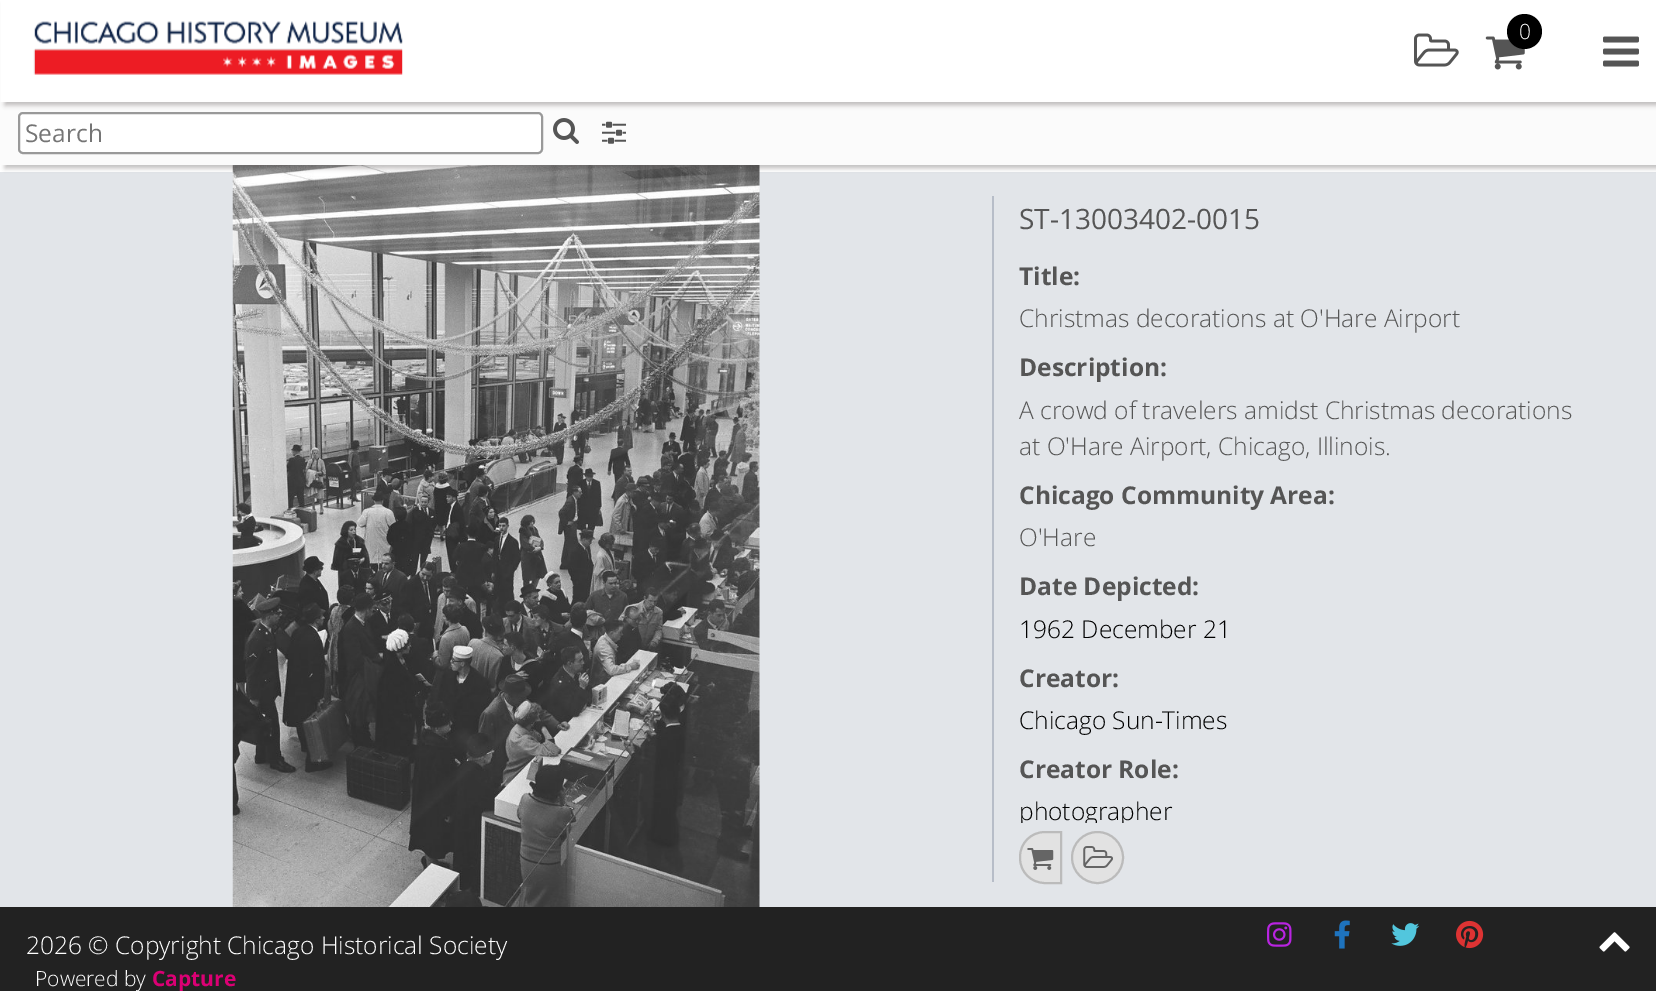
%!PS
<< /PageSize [1656 991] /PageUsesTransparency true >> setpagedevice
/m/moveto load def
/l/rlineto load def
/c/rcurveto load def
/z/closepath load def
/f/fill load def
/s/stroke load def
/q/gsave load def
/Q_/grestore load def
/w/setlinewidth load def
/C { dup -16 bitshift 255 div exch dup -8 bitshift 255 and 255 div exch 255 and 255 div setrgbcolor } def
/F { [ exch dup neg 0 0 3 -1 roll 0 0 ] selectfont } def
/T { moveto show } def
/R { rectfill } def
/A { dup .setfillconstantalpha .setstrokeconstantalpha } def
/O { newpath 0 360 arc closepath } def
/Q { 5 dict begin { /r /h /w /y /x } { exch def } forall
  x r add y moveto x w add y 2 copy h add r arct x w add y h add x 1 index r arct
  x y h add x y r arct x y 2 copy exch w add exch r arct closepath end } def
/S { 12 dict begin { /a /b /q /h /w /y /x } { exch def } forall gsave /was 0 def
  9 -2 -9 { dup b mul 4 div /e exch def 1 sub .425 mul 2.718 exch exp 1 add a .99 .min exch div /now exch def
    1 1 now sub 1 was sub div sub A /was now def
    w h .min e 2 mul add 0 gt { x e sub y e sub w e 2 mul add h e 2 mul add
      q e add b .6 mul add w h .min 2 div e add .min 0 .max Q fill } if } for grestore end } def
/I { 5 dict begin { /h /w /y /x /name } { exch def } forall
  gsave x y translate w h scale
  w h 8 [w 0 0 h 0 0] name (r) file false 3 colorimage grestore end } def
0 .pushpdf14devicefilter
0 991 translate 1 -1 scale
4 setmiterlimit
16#FFFFFF C
0 0 1656 991 R
16#E2E5E9 C
0 172 1656 735 R
(7.rgb) 232 165 528 742 I
16#4A4545 C
5 105 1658 63 0 2.5 .35 S
16#FBFBFB C
0 102 1656 63 R
16#FFFFFF C
19 113 523 40 4 Q q f Q_
16#999999 C
2 w
s
16#4A4545 C
5 4 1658 101 0 2.5 .35 S
16#FFFFFF C
1 0 1655 102 R
(1.rgb) 33 21 370 54 I
(2.rgb) 1414 33 45 34 I
(3.rgb) 1485 36 40 34 I
16#000000 C
1524.5 31.5 17.5 O f
/OpenSans-Light 21 F
16#FFFFFF C
(0) 1519 39 T
(4.rgb) 1603 36 36 31 I
/OpenSans-Regular 24.5 F
16#757575 C
(Search) 25 142 T
(5.rgb) 553 118 26 26 I
(6.rgb) 602 121 24 23 I
16#B7BDC8 C
992 196 2 686 R
/OpenSans-Regular 28 F
16#555555 C
(ST-13003402-0015) 1019 229 T
/OpenSans-Bold 24.5 F
(Title:) 1019 285 T
/OpenSans-Light 24.5 F
(Christmas decorations at O'Hare Airport) 1019 327 T
/OpenSans-Bold 24.5 F
(Description:) 1019 376 T
/OpenSans-Light 24.5 F
(A crowd of travelers amidst Christmas decorations) 1019 419 T
(at O'Hare Airport, Chicago, Illinois.) 1019 455 T
/OpenSans-Bold 24.5 F
(Chicago Community Area:) 1019 504 T
/OpenSans-Light 24.5 F
(O'Hare) 1019 546 T
/OpenSans-Bold 24.5 F
(Date Depicted:) 1019 595 T
/OpenSans-Light 24.5 F
16#000000 C
(1962 December 21) 1019 638 T
/OpenSans-Bold 24.5 F
16#555555 C
(Creator:) 1019 687 T
/OpenSans-Light 24.5 F
16#000000 C
(Chicago Sun-Times) 1019 729 T
/OpenSans-Bold 24.5 F
16#555555 C
(Creator Role:) 1019 778 T
q
994 172 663 651 rectclip
/OpenSans-Light 24.5 F
16#000000 C
(photographer) 1019 820 T
Q_
16#E2E2E2 C
1045 832 m 16 0 l 0 51 l -16 0 l -14 0 -25 -11 -25 -25 c 0 -1 l 0 -14 11 -25 25 -25 c z q f Q_
16#BBBBBB C
s
(8.rgb) 1027 848 27 22 I
16#E2E2E2 C
1097.5 857.5 25.5 O q f Q_
16#BBBBBB C
s
(9.rgb) 1083 846 30 22 I
16#222222 C
0 907 1656 84 R
/OpenSans-Light 24.5 F
16#FFFFFF C
(2026 © Copyright Chicago Historical Society) 26 954 T
/OpenSans-Light 21 F
(Powered by) 35 986 T
/OpenSans-Bold 21 F
16#DB0074 C
(Capture) 152 986 T
(10.rgb) 1267 922 25 25 I
(11.rgb) 1334 920 16 29 I
(12.rgb) 1391 923 29 23 I
(13.rgb) 1456 920 28 29 I
(14.rgb) 1599 932 31 20 I
.poppdf14devicefilter showpage
